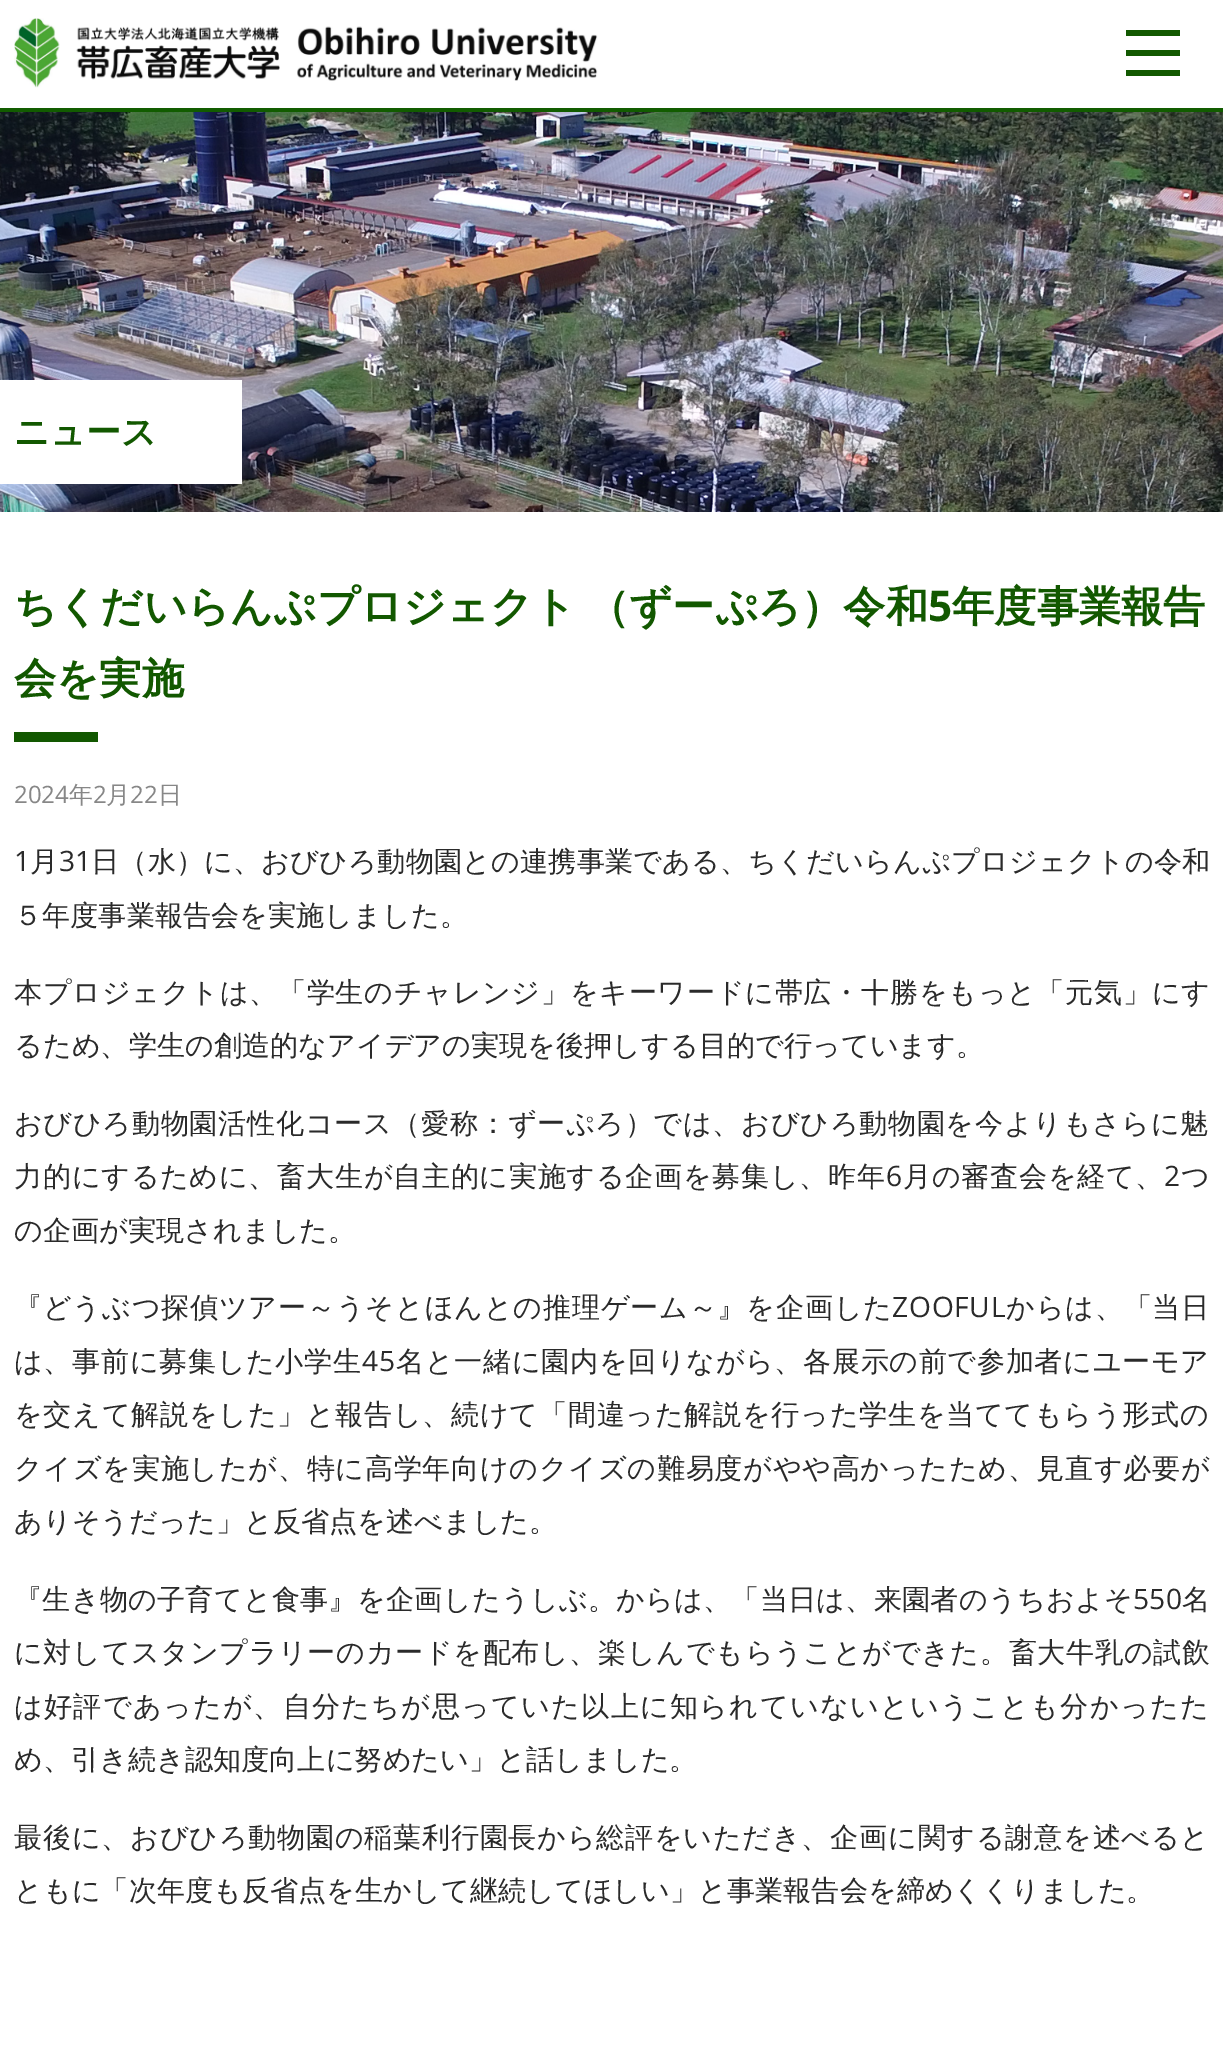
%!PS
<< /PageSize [1223 2064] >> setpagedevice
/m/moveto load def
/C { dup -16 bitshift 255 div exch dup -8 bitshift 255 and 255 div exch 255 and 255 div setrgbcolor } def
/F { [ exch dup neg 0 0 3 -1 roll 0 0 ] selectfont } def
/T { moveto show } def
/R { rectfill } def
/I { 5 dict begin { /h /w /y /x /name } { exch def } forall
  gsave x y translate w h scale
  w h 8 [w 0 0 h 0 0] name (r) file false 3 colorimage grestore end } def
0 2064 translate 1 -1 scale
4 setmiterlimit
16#FFFFFF C
0 0 1223 2064 R
16#125C00 C
0 108 1223 4 R
(1.rgb) 14 18 584 70 I
16#125800 C
1126 30 54 6 R
1126 50 54 6 R
1126 70 54 6 R
(2.rgb) 0 112 1223 400 I
16#FFFFFF C
0 380 242 104 R
/WenQuanYiZenHei-Bold 35 F
16#125800 C
(ニュース) 14 444 T
/WenQuanYiZenHei-Bold 42.25 F
(ちくだいらんぷプロジェクト) 14 621 T
(（ずーぷろ）令和) 587 621 T
/OpenSans-Bold 42.25 F
(5) 928 621 T
/WenQuanYiZenHei-Bold 42.25 F
(年度事業報告) 952 621 T
(会を実施) 14 693 T
14 732 84 10 R
/OpenSans-Regular 24 F
16#878787 C
(2024) 14 803 T
/WenQuanYiZenHei-Medium 24 F
(年) 69 803 T
/OpenSans-Regular 24 F
(2) 93 803 T
/WenQuanYiZenHei-Medium 24 F
(月) 106 803 T
/OpenSans-Regular 24 F
(22) 130 803 T
/WenQuanYiZenHei-Medium 24 F
(日) 158 803 T
/OpenSans-Regular 28.15 F
16#2A2A2A C
14 871 m .15 0 (1) ashow
/WenQuanYiZenHei-Medium 28.15 F
30 871 m .15 0 (月) ashow
/OpenSans-Regular 28.15 F
59 871 m .15 0 (31) ashow
/WenQuanYiZenHei-Medium 28.15 F
91 871 m .15 0 (日（水）に、おびひろ動物園との連携事業である、ちくだいらんぷプロジェクトの令和) ashow
(５年度事業報告会を実施しました。) 14 925 T
14 1002 m .65 0 (本プロジェクトは、「学生のチャレンジ」をキーワードに帯広・十勝をもっと「元気」にす) ashow
(るため、学生の創造的なアイデアの実現を後押しする目的で行っています。) 14 1055 T
14 1133 m .65 0 (おびひろ動物園活性化コース（愛称：ずーぷろ）では、おびひろ動物園を今よりもさらに魅) ashow
14 1186 m .65 0 (力的にするために、畜大生が自主的に実施する企画を募集し、昨年) ashow
/OpenSans-Regular 28.15 F
886 1186 m .65 0 (6) ashow
/WenQuanYiZenHei-Medium 28.15 F
903 1186 m .65 0 (月の審査会を経て、) ashow
/OpenSans-Regular 28.15 F
1164 1186 m .65 0 (2) ashow
/WenQuanYiZenHei-Medium 28.15 F
1181 1186 m .65 0 (つ) ashow
(の企画が実現されました。) 14 1240 T
14 1317 m .75 0 (『どうぶつ探偵ツアー～うそとほんとの推理ゲーム～』を企画した) ashow
/OpenSans-Regular 28.15 F
892 1317 m .75 0 (ZOOFUL) ashow
/WenQuanYiZenHei-Medium 28.15 F
1006 1317 m .75 0 (からは、「当日) ashow
14 1371 m .6 0 (は、事前に募集した小学生) ashow
/OpenSans-Regular 28.15 F
362 1371 m .6 0 (45) ashow
/WenQuanYiZenHei-Medium 28.15 F
396 1371 m .6 0 (名と一緒に園内を回りながら、各展示の前で参加者にユーモア) ashow
14 1424 m .65 0 (を交えて解説をした」と報告し、続けて「間違った解説を行った学生を当ててもらう形式の) ashow
14 1478 m .65 0 (クイズを実施したが、特に高学年向けのクイズの難易度がやや高かったため、見直す必要が) ashow
(ありそうだった」と反省点を述べました。) 14 1531 T
14 1609 m .2 0 (『生き物の子育てと食事』を企画したうしぶ。からは、「当日は、来園者のうちおよそ) ashow
/OpenSans-Regular 28.15 F
1133 1609 m .2 0 (550) ashow
/WenQuanYiZenHei-Medium 28.15 F
1182 1609 m .2 0 (名) ashow
14 1662 m .6 0 (に対してスタンプラリーのカードを配布し、楽しんでもらうことができた。畜大牛乳の試飲) ashow
14 1716 m 1.25 0 (は好評であったが、自分たちが思っていた以上に知られていないということも分かったた) ashow
(め、引き続き認知度向上に努めたい」と話しました。) 14 1769 T
14 1847 m .7 0 (最後に、おびひろ動物園の稲葉利行園長から総評をいただき、企画に関する謝意を述べると) ashow
(ともに「次年度も反省点を生かして継続してほしい」と事業報告会を締めくくりました。) 14 1900 T
showpage
